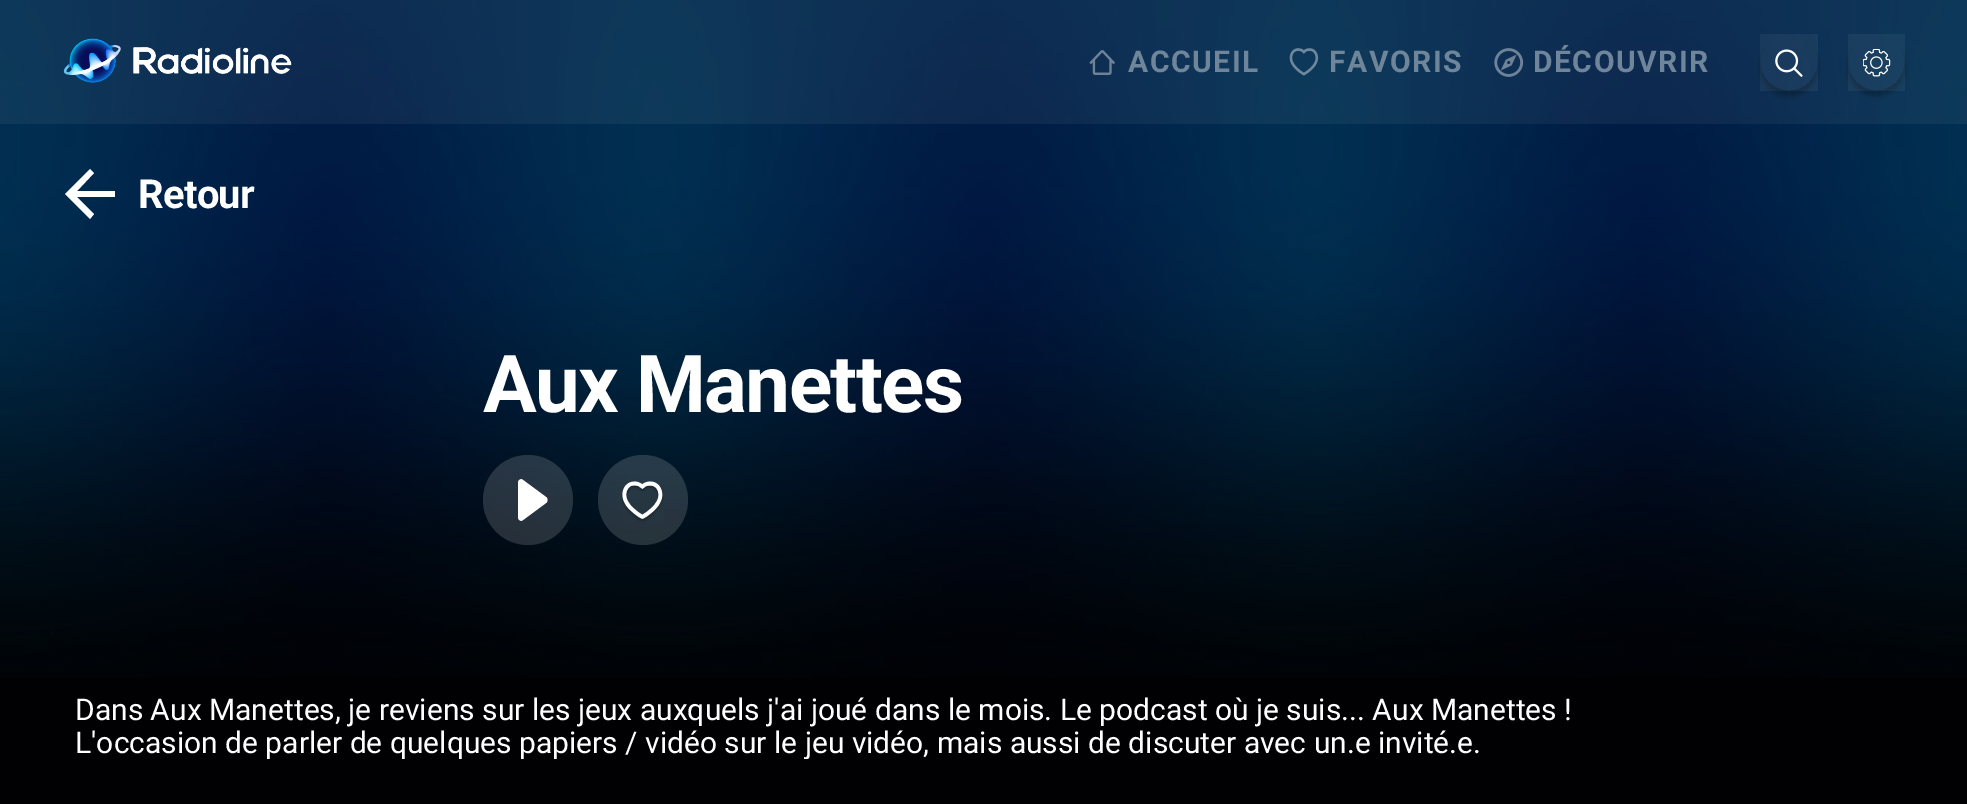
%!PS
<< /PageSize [1967 804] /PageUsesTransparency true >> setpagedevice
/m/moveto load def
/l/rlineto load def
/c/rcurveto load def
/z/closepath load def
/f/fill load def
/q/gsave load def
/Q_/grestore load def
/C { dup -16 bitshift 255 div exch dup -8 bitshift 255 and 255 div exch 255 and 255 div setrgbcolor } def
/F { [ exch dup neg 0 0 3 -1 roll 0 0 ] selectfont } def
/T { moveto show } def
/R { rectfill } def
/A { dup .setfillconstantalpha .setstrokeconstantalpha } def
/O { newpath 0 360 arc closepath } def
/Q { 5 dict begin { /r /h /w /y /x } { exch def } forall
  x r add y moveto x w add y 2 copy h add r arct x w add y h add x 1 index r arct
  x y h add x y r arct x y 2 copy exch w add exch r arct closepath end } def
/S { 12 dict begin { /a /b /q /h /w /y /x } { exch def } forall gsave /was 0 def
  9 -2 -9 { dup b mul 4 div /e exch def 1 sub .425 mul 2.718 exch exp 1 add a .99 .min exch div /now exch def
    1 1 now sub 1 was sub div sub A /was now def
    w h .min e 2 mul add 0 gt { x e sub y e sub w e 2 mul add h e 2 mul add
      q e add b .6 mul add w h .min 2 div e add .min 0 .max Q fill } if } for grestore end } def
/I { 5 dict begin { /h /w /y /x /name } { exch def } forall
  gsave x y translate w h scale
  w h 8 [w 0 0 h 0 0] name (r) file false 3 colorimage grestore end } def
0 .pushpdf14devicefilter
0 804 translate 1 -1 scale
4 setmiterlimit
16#010103 C
0 0 1967 804 R
(1.rgb) 0 0 1967 677 I
0.05 A
16#FFFFFF C
0 0 1967 124 R
1 A
(2.rgb) 63 38 229 45 I
(3.rgb) 1089 50 26 25 I
/Roboto-Bold 30 F
16#6E859A C
1128 72 m 1.5 0 (ACCUEIL) ashow
(4.rgb) 1289 48 30 28 I
1329 72 m 1.5 0 (FAVORIS) ashow
(5.rgb) 1494 48 30 29 I
1533 72 m 1.5 0 (DÉCOUVRIR) ashow
q
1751 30 m 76 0 l 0 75 l -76 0 l z 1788.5 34 m 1 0 l 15.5 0 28.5 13 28.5 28.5 c 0 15.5 -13 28.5 -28.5 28.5 c -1 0 l -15.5 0 -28.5 -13 -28.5 -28.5 c 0 -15.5 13 -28.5 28.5 -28.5 c z eoclip newpath
16#000000 C
1760 39 58 57 28.5 2.5 .25 S
Q_
0.05 A
16#FFFFFF C
1760 34 58 57 R
1 A
(6.rgb) 1775 49 28 28 I
q
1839 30 m 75 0 l 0 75 l -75 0 l z 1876.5 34 m 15.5 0 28.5 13 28.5 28.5 c 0 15.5 -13 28.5 -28.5 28.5 c -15.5 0 -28.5 -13 -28.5 -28.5 c 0 -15.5 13 -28.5 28.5 -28.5 c z eoclip newpath
16#000000 C
1848 39 57 57 28.5 2.5 .25 S
Q_
0.05 A
1848 34 57 57 R
1 A
(7.rgb) 1863 49 28 28 I
115 191 m -38 0 l 17 -18 l -4 -4 l -25 25 l 25 25 l 4 -5 l -17 -17 l 38 0 l z f
/Roboto-Bold 40 F
138 208 m -.75 0 (Retour) ashow
/Roboto-Bold 80 F
483 412 m -1.6 0 (Aux Manettes) ashow
0.15 A
528 500 45 O f
1 A
546 497 m -23 -17 l -2 -2 -5 0 -5 3 c 0 34 l 0 3 3 5 5 3 c 23 -17 l 2 -1 2 -5 0 -6 c z f
0.15 A
643 500 45 O f
1 A
(8.rgb) 621 481 43 41 I
/Roboto-Regular 30 F
(Dans Aux Manettes, je reviens sur les jeux auxquels j'ai joué dans le mois. Le podcast où je suis... Aux Manettes !) 75 720 T
q
75 676 1818 83 rectclip
(L'occasion de parler de quelques papiers / vidéo sur le jeu vidéo, mais aussi de discuter avec un.e invité.e.) 75 753 T
Q_
.poppdf14devicefilter showpage
